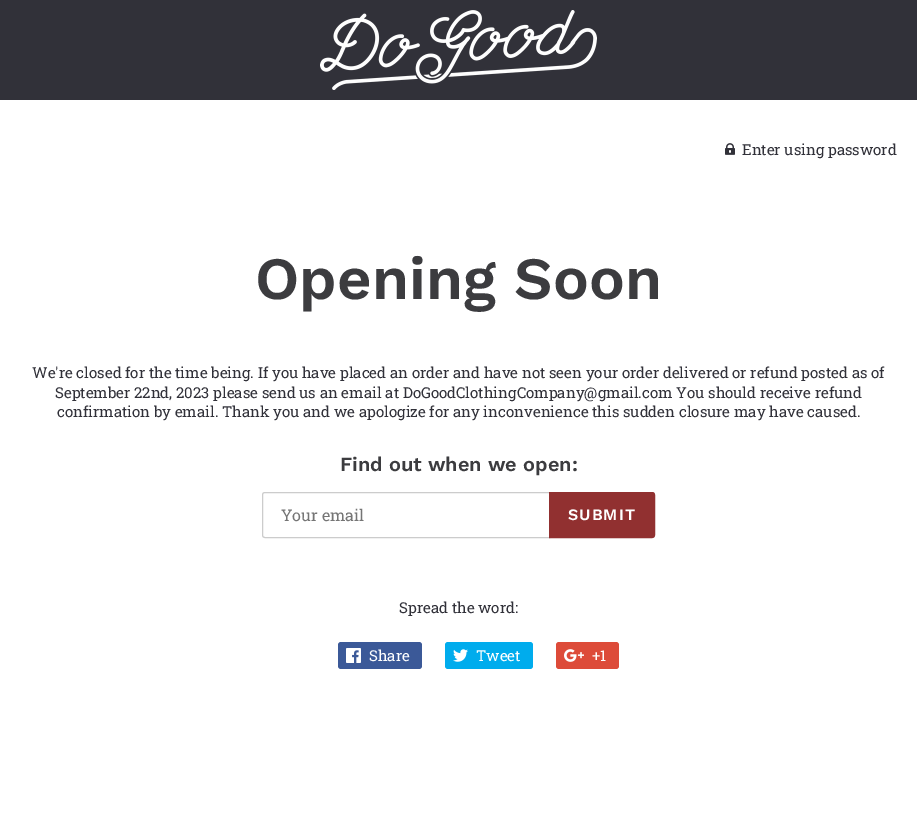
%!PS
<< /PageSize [917 818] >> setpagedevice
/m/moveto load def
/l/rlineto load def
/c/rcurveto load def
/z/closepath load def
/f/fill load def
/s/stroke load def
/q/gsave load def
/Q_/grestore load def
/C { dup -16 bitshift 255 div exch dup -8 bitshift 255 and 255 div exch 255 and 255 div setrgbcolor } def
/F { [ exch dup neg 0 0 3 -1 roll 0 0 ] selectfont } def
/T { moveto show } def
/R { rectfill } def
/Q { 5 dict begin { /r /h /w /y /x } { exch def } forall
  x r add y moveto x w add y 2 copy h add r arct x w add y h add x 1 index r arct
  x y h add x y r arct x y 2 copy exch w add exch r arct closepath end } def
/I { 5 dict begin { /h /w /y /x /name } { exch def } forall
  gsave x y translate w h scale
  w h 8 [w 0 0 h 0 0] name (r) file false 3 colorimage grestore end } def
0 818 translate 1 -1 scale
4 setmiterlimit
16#FFFFFF C
0 0 917 818 R
16#313139 C
0 0 917 100 R
(1.rgb) 320 10 277 80 I
(2.rgb) 725 143 10 12 I
/RobotoSlab-Regular 15 F
(Enter using password) 742 155 T
/WorkSans-SemiBold 60 F
16#3C3C3F C
(Opening Soon) 255 299 T
/RobotoSlab-Regular 15 F
16#313139 C
(We're closed for the time being. If you have placed an order and have not seen your order delivered or refund posted as of) 32 378 T
(September 22nd, 2023 please send us an email at DoGoodClothingCompany@gmail.com You should receive refund) 55 398 T
(confirmation by email. Thank you and we apologize for any inconvenience this sudden closure may have caused.) 57 417 T
/WorkSans-SemiBold 20 F
16#3C3C3F C
(Find out when we open:) 340 471 T
16#CCCCCC C
265 492.5 m 284.5 0 l 0 45 l -284.5 0 l -1.5 0 -2.5 -1 -2.5 -2.5 c 0 -40 l 0 -1.5 1 -2.5 2.5 -2.5 c z s
/RobotoSlab-Regular 16 F
16#757575 C
(Your email) 281 521 T
16#913030 C
549.5 492.5 m 102.5 0 l 1.5 0 2.5 1 2.5 2.5 c 0 40 l 0 1.5 -1 2.5 -2.5 2.5 c -102.5 0 l z q f Q_
s
/WorkSans-SemiBold 16 F
16#FFFFFF C
568 520 m 1 0 (SUBMIT) ashow
/RobotoSlab-Regular 15 F
16#313139 C
(Spread the word:) 399 613 T
16#3B5998 C
338 642 84 27 3 Q f
(3.rgb) 346 648 15 15 I
16#FFFFFF C
(Share) 369 661 T
16#00ACED C
445 642 88 27 3 Q f
(4.rgb) 453 649 15 13 I
16#FFFFFF C
(Tweet) 476 661 T
16#DD4B39 C
556 642 63 27 3 Q f
(5.rgb) 564 649 20 13 I
16#FFFFFF C
(+1) 592 661 T
showpage
